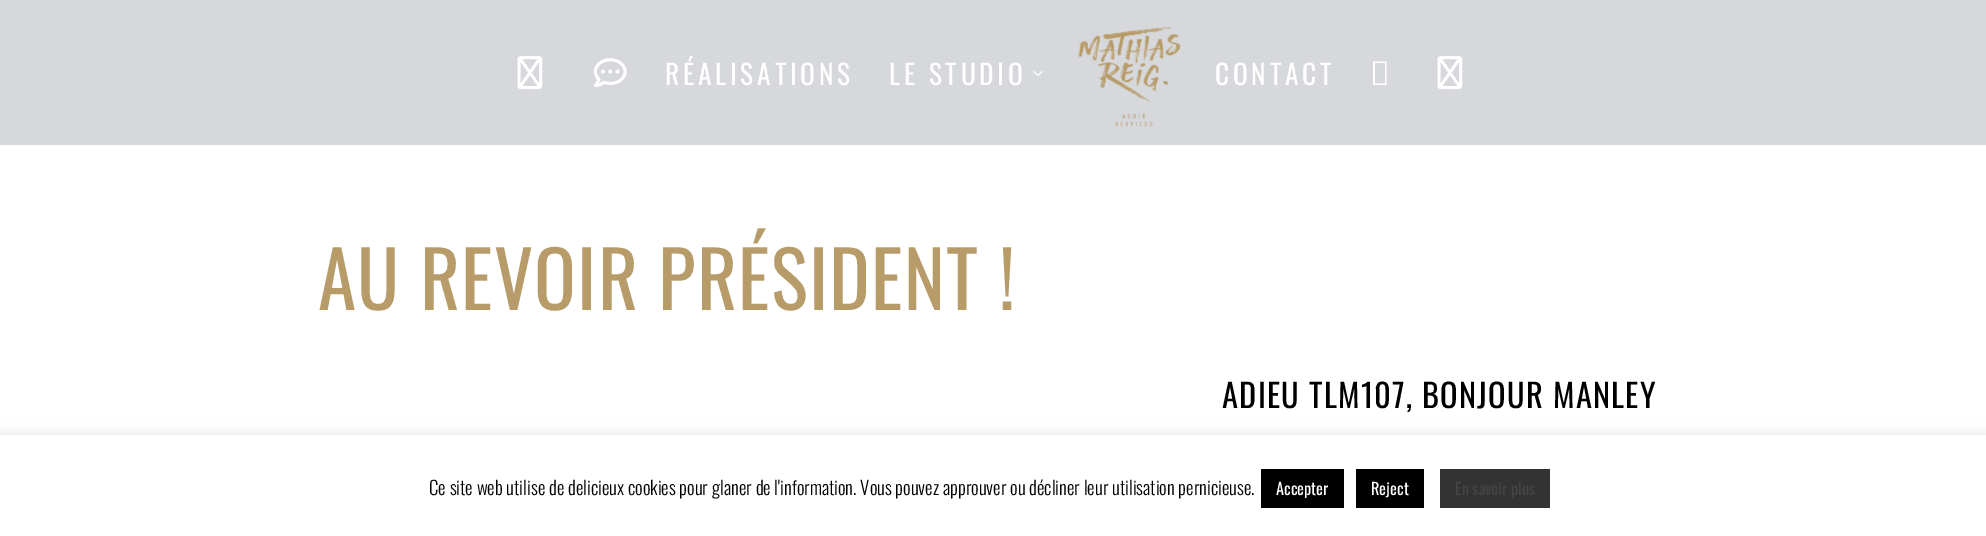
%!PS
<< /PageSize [1986 536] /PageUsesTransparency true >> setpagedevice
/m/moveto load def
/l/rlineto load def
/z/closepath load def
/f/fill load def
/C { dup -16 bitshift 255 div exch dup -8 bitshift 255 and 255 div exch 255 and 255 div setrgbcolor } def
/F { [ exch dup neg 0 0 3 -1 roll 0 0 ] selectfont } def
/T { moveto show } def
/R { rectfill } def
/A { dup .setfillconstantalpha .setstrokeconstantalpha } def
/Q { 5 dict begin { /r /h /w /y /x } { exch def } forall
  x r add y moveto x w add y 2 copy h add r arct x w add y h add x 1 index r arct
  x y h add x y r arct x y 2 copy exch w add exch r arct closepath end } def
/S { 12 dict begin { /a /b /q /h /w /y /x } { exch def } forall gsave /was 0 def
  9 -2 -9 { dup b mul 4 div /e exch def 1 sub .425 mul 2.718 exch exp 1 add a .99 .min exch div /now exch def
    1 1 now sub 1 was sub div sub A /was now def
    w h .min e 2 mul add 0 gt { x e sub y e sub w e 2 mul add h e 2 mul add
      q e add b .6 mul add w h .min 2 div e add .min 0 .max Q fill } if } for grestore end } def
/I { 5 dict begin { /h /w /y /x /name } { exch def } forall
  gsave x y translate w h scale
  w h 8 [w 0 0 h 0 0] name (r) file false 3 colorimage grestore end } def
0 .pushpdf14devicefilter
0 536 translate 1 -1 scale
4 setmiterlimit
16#FFFFFF C
0 0 1986 536 R
16#D6D8DC C
0 0 1986 145 R
(1.rgb) 517 56 26 34 I
(2.rgb) 593 58 34 29 I
/Oswald-Regular 27.5 F
16#FFFFFF C
665 85 m 3.75 0 (RÉALISATIONS) ashow
889 85 m 3.75 0 (LE STUDIO) ashow
(3.rgb) 1033 71 10 6 I
(4.rgb) 1078 27 103 100 I
1215 85 m 3.75 0 (CONTACT) ashow
1373 85 m 0 -23.5 l 13.5 0 l 0 23.5 l z 1375 83.5 m 10 0 l 0 -20.5 l -10 0 l z f
(1.rgb) 1437 56 26 34 I
/Oswald-Regular 77.5 F
16#B79B68 C
318 310 m 1.25 0 (AU REVOIR PRÉSIDENT !) ashow
/Oswald-Regular 32.5 F
16#000000 C
1222 408 m 1.25 0 (ADIEU TLM107, BONJOUR MANLEY) ashow
16#ACABAB C
0 434 1986 101 0 6 .3 S
16#FFFFFF C
0 435 1986 101 R
/Oswald-Light 18.75 F
16#000000 C
(Ce site web utilise de delicieux cookies pour glaner de l'information. Vous pouvez approuver ou décliner leur utilisation pernicieuse.) 429 495 T
1261 469 83 39 R
/Oswald-Regular 16.25 F
16#FFFFFF C
(Accepter) 1276 495 T
16#000000 C
1356 469 68 39 R
16#FFFFFF C
(Reject) 1371 495 T
16#333333 C
1440 469 110 39 R
16#444444 C
(En savoir plus) 1455 495 T
.poppdf14devicefilter showpage
